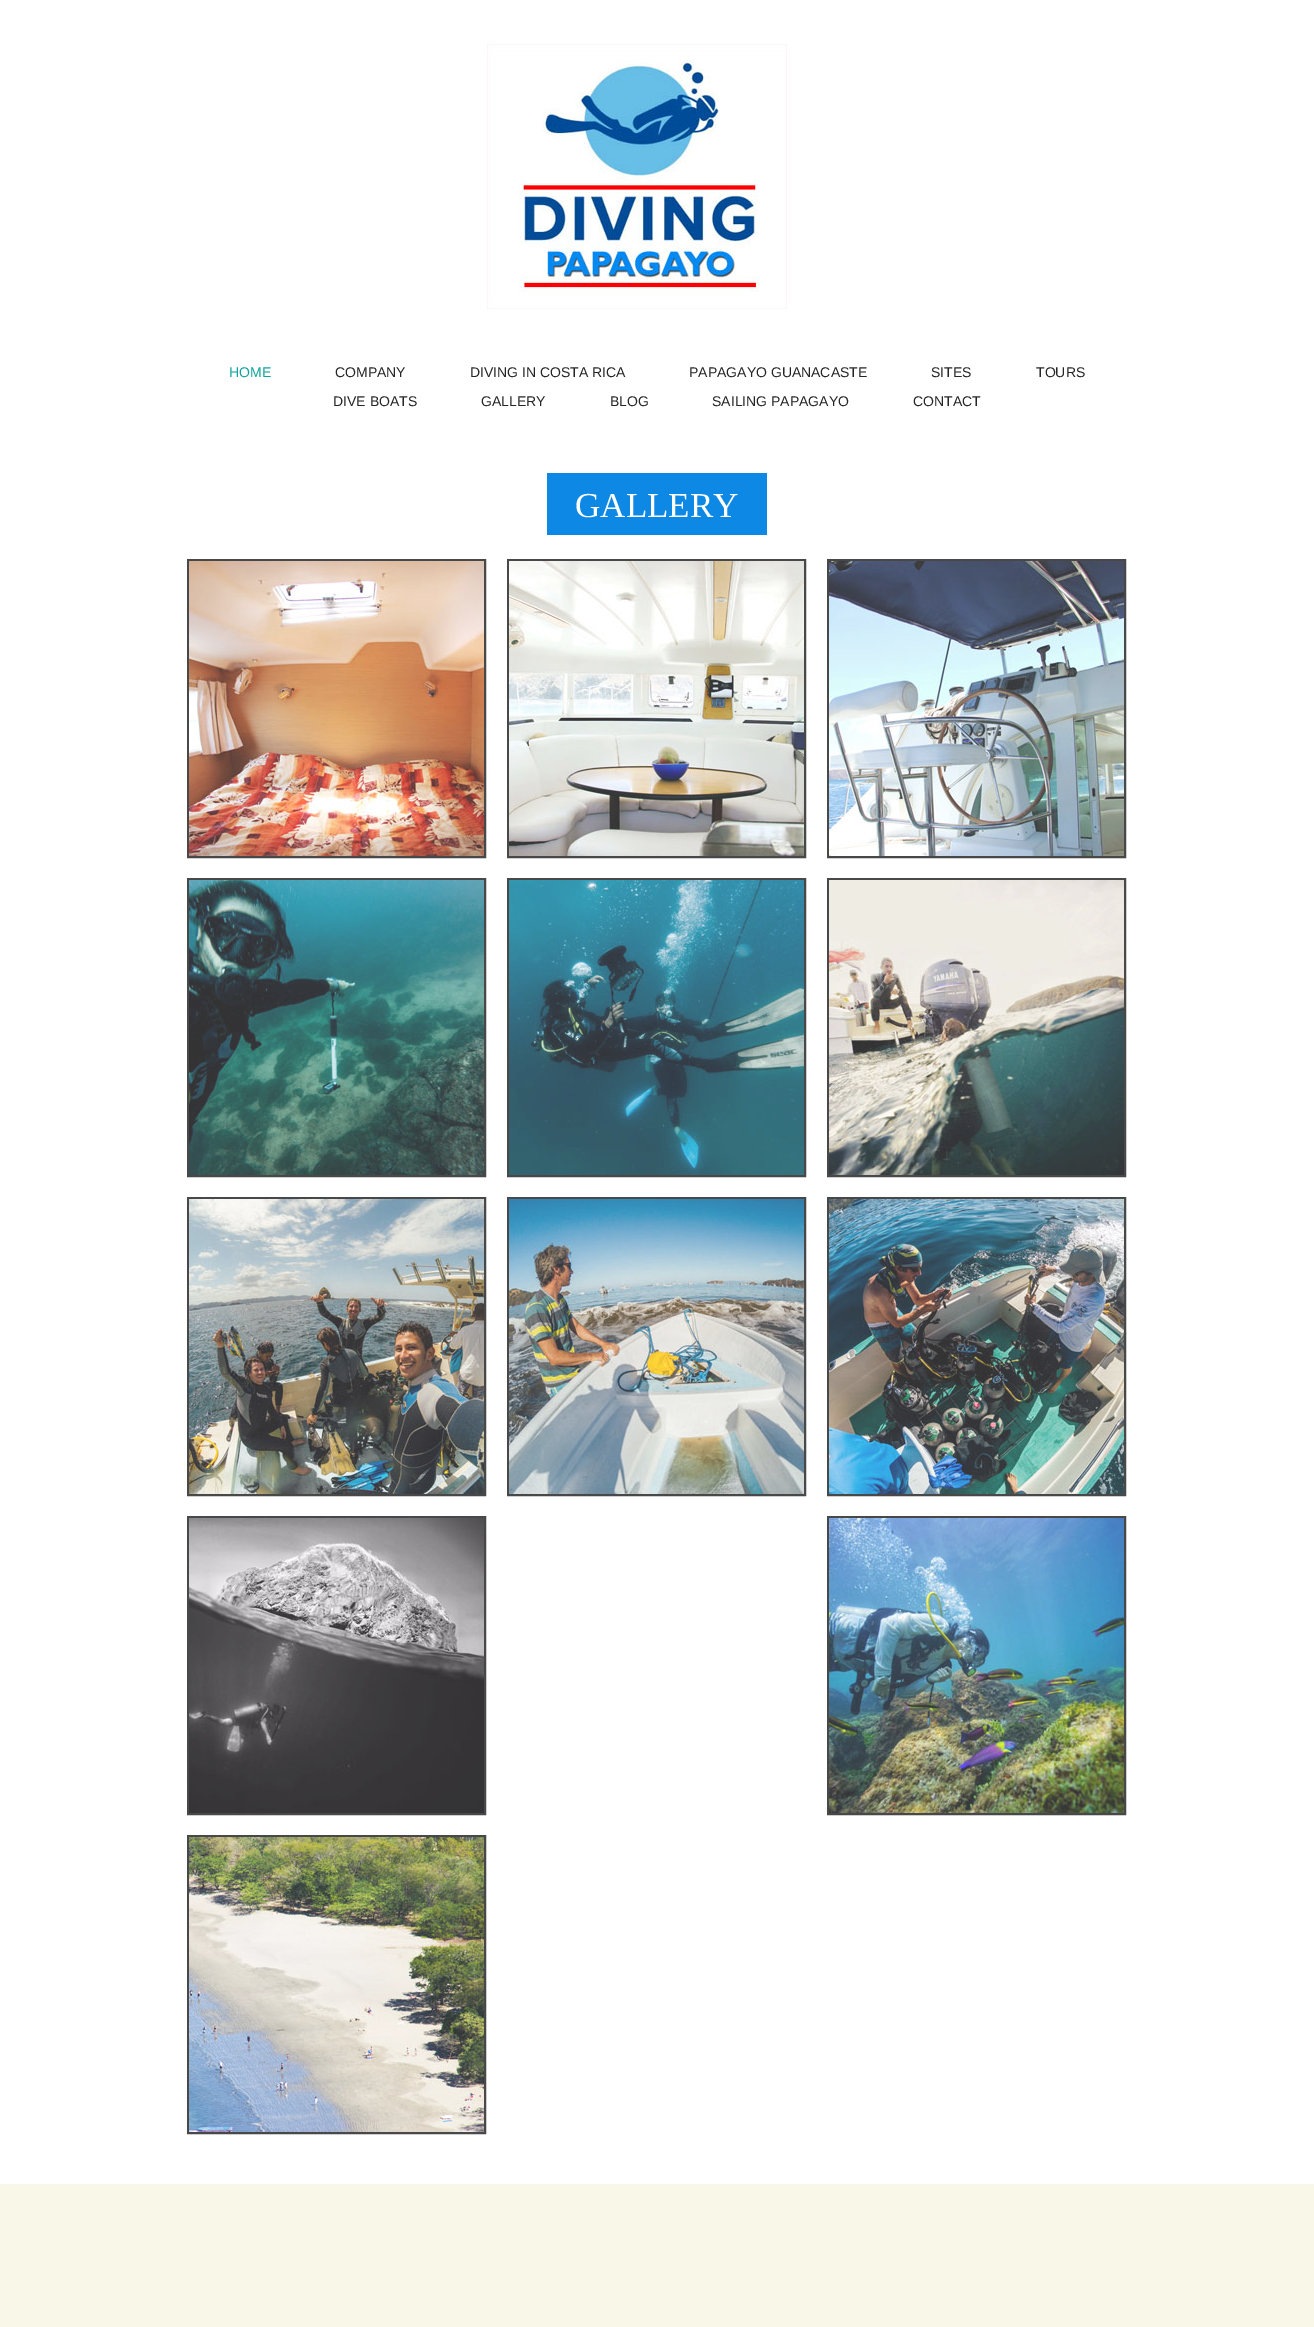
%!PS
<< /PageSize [1314 2327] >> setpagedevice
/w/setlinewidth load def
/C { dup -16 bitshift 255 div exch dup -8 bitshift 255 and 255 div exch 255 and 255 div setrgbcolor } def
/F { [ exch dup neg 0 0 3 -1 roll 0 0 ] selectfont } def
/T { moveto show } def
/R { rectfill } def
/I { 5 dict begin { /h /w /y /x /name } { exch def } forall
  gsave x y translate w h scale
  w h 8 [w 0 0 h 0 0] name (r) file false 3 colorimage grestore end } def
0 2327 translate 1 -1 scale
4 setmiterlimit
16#FFFFFF C
0 0 1314 2327 R
(1.rgb) 487 44 300 265 I
/LiberationSans-Regular 14 F
16#0BA39C C
(HOME) 229 377 T
16#252525 C
(COMPANY) 335 377 T
(DIVING IN COSTA RICA) 470 377 T
(PAPAGAYO GUANACASTE) 689 377 T
(SITES) 931 377 T
(TOURS) 1036 377 T
(DIVE BOATS) 333 406 T
(GALLERY) 481 406 T
(BLOG) 610 406 T
(SAILING PAPAGAYO) 712 406 T
(CONTACT) 913 406 T
16#0D88E5 C
547 473 220 62 R
/LiberationSerif-Regular 35 F
16#FFFFFF C
(GALLERY) 575 517 T
16#484848 C
2 w
188 560 297 297 rectstroke
(2.rgb) 189 561 295 295 I
508 560 297 297 rectstroke
(3.rgb) 509 561 295 295 I
828 560 297 297 rectstroke
(4.rgb) 829 561 295 295 I
188 879 297 297 rectstroke
(5.rgb) 189 880 295 295 I
508 879 297 297 rectstroke
(6.rgb) 509 880 295 295 I
828 879 297 297 rectstroke
(7.rgb) 829 880 295 295 I
188 1198 297 297 rectstroke
(8.rgb) 189 1199 295 295 I
508 1198 297 297 rectstroke
(9.rgb) 509 1199 295 295 I
828 1198 297 297 rectstroke
(10.rgb) 829 1199 295 295 I
188 1517 297 297 rectstroke
(11.rgb) 189 1518 295 295 I
828 1517 297 297 rectstroke
(12.rgb) 829 1518 295 295 I
188 1836 297 297 rectstroke
(13.rgb) 189 1837 295 295 I
16#F9F7E8 C
0 2184 1314 143 R
showpage
